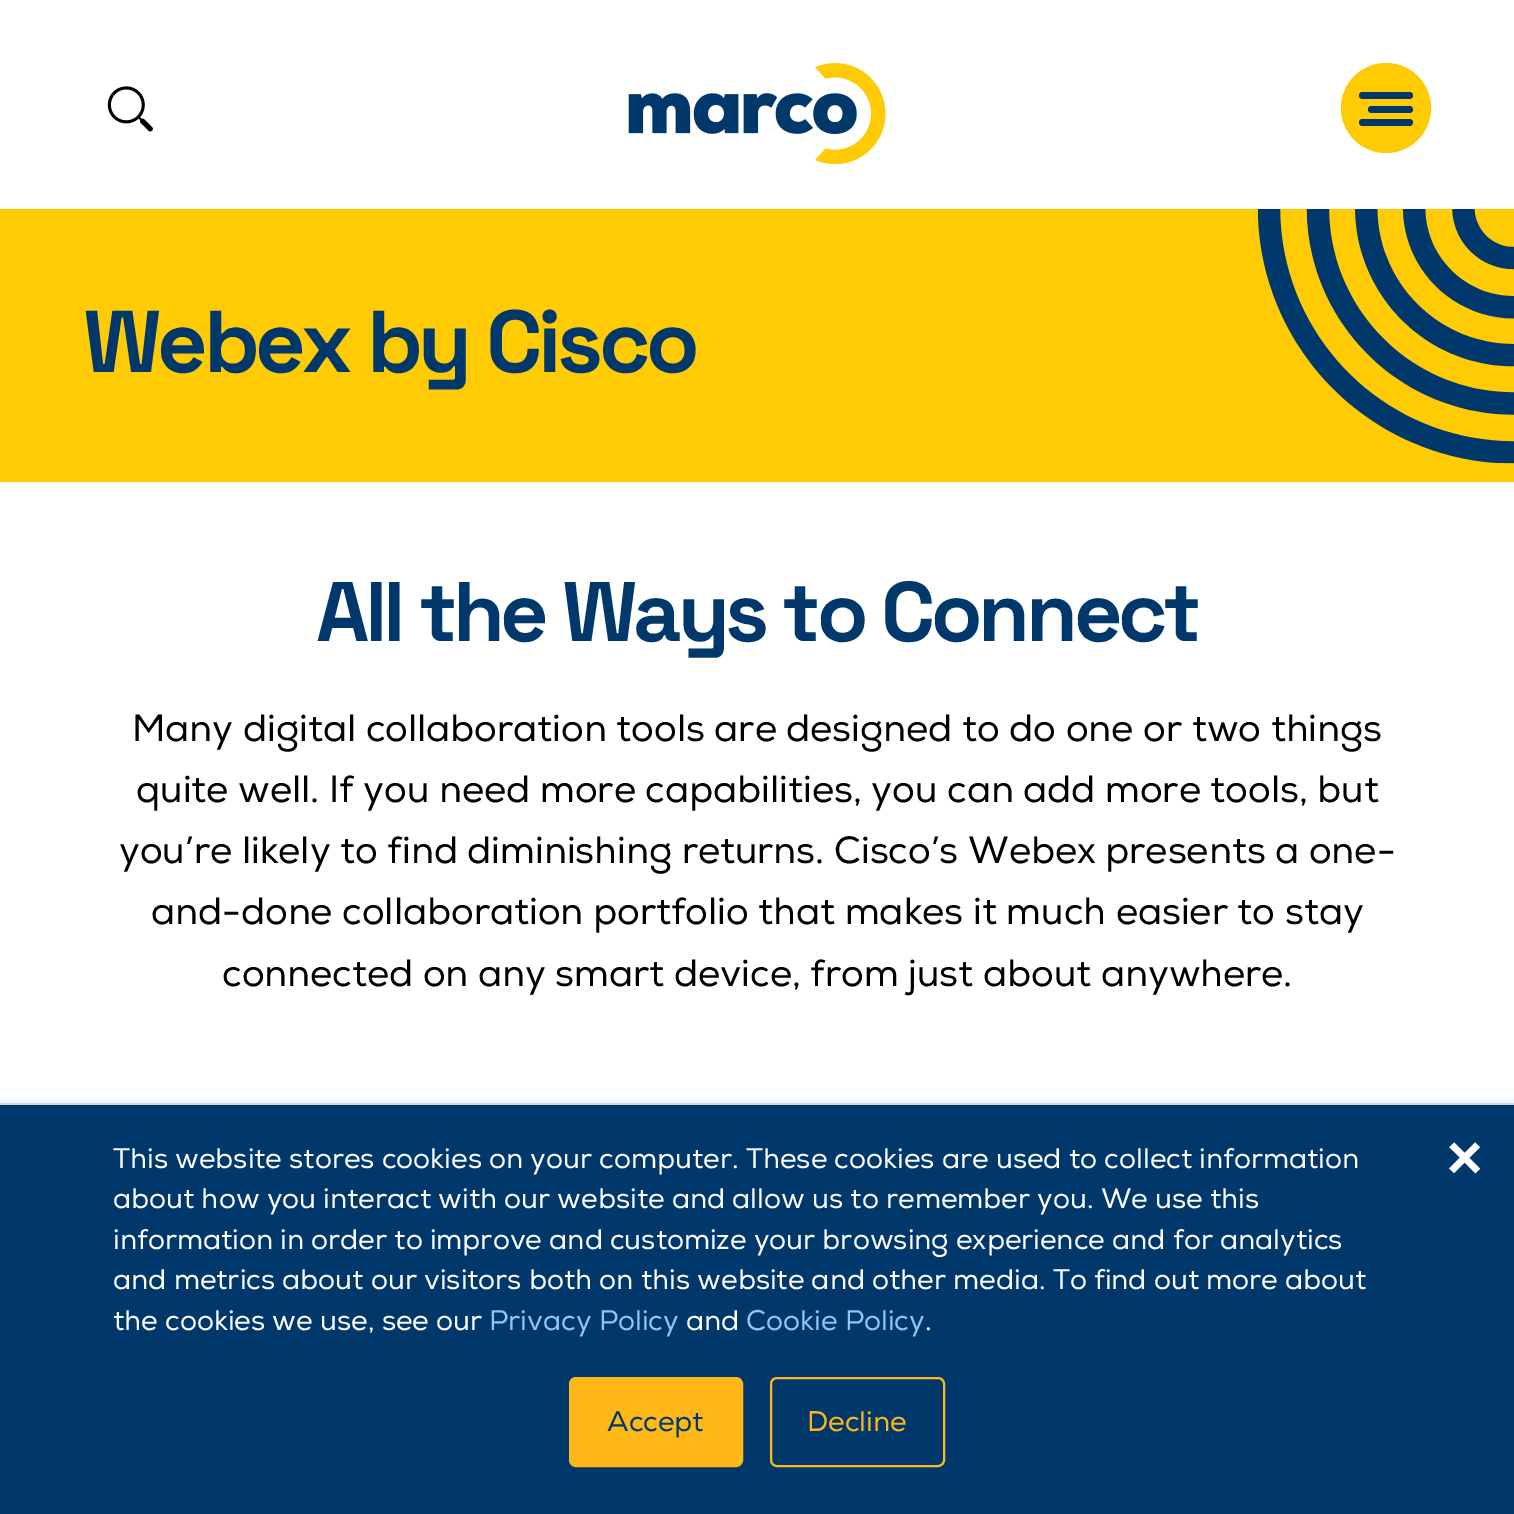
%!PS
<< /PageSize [1514 1514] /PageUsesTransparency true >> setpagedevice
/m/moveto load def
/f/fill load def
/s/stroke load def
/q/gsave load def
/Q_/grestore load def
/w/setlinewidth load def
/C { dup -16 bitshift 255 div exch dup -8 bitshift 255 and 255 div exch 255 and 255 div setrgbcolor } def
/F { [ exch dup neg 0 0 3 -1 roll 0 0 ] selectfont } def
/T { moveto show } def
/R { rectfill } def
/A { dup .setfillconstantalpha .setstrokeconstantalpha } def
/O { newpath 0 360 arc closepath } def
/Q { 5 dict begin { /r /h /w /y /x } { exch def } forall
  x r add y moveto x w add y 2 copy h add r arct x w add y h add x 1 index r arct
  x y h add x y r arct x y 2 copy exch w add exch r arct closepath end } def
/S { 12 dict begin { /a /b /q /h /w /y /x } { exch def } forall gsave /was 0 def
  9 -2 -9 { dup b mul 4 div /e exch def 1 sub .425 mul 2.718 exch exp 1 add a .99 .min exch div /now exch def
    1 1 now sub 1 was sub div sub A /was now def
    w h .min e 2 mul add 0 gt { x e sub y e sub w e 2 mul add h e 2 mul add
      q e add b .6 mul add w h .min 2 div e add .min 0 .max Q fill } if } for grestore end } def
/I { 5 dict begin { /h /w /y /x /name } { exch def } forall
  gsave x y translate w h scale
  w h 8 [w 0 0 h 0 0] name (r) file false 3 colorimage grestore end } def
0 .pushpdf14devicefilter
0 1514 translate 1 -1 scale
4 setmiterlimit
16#FFFFFF C
0 0 1514 1514 R
(1.rgb) 107 86 46 46 I
(2.rgb) 628 63 258 101 I
16#FFCB05 C
1386 108 45 O f
16#00386C C
1359 92 54 7 3.5 Q f
1368 106 45 7 3.5 Q f
1359 119 54 7 3.5 Q f
16#FFCB05 C
0 209 1514 273 R
/SpaceGrotesk-Light 87.75 F
16#00386C C
83 372 m -4.4 0 (Webex by Cisco) ashow
(3.rgb) 1258 209 256 255 I
/SpaceGrotesk-Light 84.25 F
316 641 m -4.25 0 (All the Ways to Connect) ashow
/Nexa-Regular 36 F
16#000000 C
(Many digital collaboration tools are designed to do one or two things) 132 741 T
(quite well. If you need more capabilities, you can add more tools, but) 136 802 T
(you’re likely to find diminishing returns. Cisco’s Webex presents a one-) 119 863 T
(and-done collaboration portfolio that makes it much easier to stay) 151 924 T
(connected on any smart device, from just about anywhere.) 222 986 T
16#EAF0F6 C
0 1100 1514 412 0 3.5 1 S
16#00386C C
0 1105 1514 409 R
16#CBD6E2 C
0 1103 1514 2 R
/Nexa-Regular 27 F
16#FFFFFF C
(This website stores cookies on your computer. These cookies are used to collect information) 113 1168 T
(about how you interact with our website and allow us to remember you. We use this) 113 1208 T
(information in order to improve and customize your browsing experience and for analytics) 113 1249 T
(and metrics about our visitors both on this website and other media. To find out more about) 113 1289 T
(the cookies we use, see our) 113 1330 T
16#91C5F3 C
(Privacy Policy) 489 1330 T
16#FFFFFF C
(and) 686 1330 T
16#91C5F3 C
(Cookie Policy) 746 1330 T
16#FFFFFF C
(.) 925 1330 T
/Nexa-Regular 90 F
(×) 1443 1188 T
16#FFB818 C
570 1378 172 88 6 Q q f Q_
2 w
s
/Nexa-Regular 27 F
16#00386C C
(Accept) 607 1431 T
16#FFB818 C
771 1378 173 88 6 Q s
(Decline) 807 1431 T
.poppdf14devicefilter showpage
